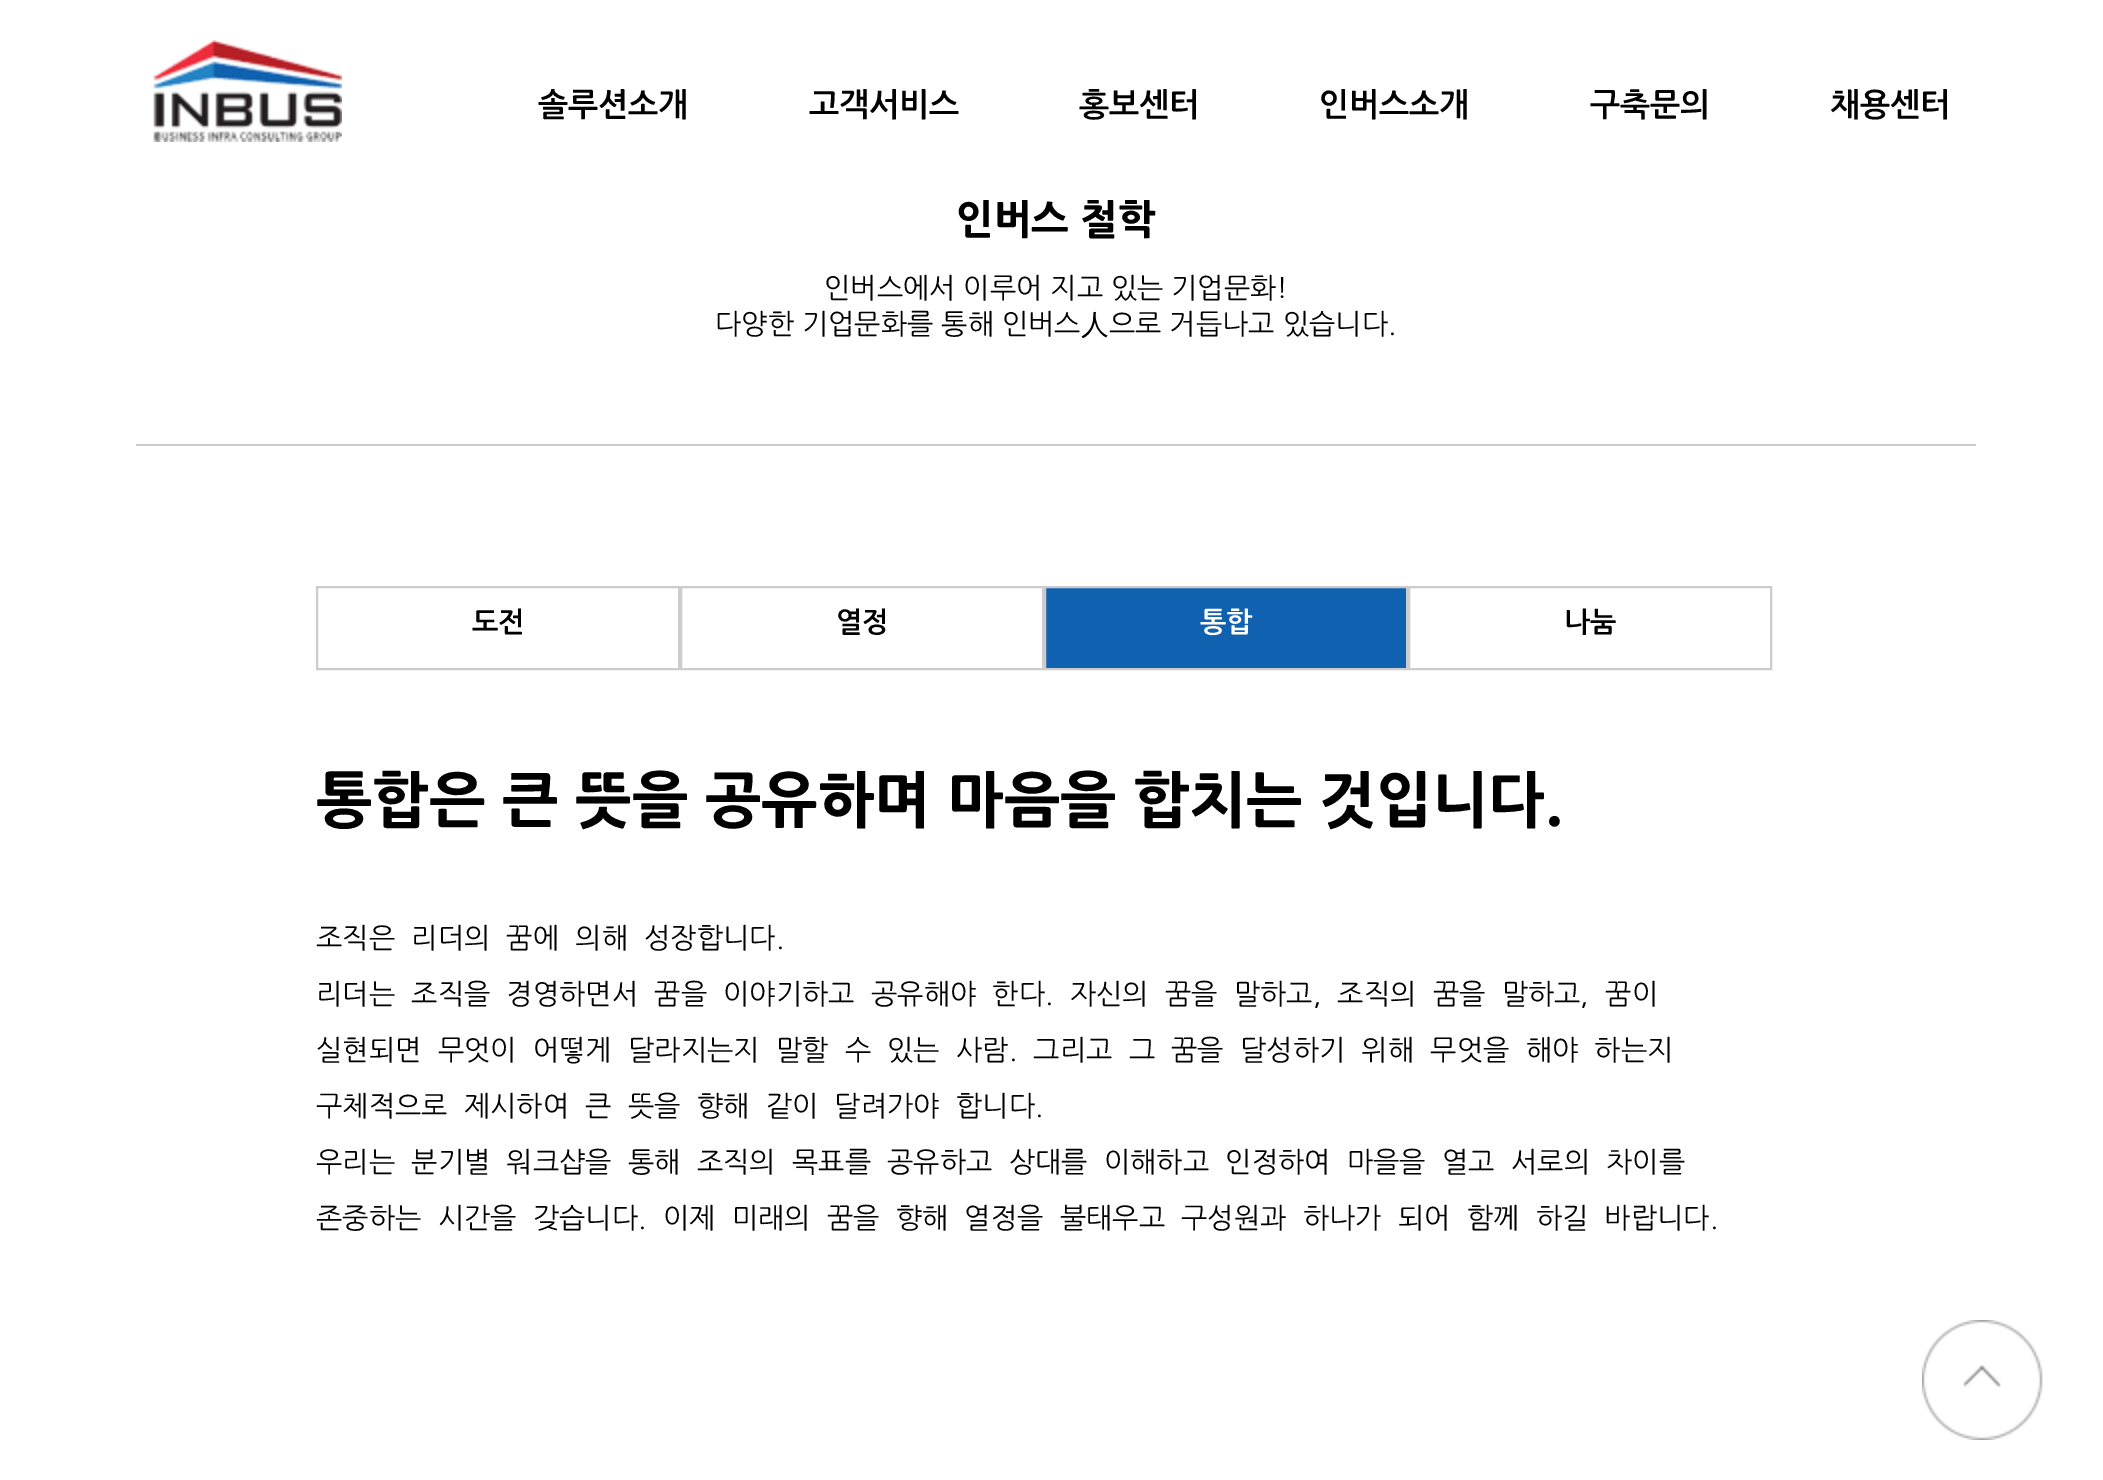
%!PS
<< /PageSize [2103 1480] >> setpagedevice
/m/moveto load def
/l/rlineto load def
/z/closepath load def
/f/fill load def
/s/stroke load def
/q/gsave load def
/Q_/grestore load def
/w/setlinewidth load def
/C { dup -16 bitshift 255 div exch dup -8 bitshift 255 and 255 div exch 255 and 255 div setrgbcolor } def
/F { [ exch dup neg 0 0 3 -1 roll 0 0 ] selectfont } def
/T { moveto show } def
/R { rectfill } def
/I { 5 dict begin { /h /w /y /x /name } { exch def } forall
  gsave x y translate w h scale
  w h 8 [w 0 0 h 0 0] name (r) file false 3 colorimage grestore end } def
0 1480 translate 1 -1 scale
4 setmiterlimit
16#FFFFFF C
0 0 2103 1480 R
/NanumGothic-ExtraBold 40 F
16#000000 C
(인버스 철학) 956 234 T
16#FFFFFF C
984 199 165 1 R
(1.rgb) 153 40 189 102 I
/NanumGothic-Bold 32 F
16#000000 C
(솔루션소개) 538 116 T
(고객서비스) 809 116 T
(홍보센터) 1079 116 T
(인버스소개) 1319 116 T
(구축문의) 1590 116 T
(채용센터) 1830 116 T
/NanumGothic-Regular 28 F
(인버스에서 이루어 지고 있는 기업문화!) 824 298 T
(다양한 기업문화를 통해 인버스) 715 334 T
/WenQuanYiZenHei-Medium 28 F
(人) 1081 334 T
/NanumGothic-Regular 28 F
(으로 거듭나고 있습니다.) 1109 334 T
16#CCCCCC C
136 444 1840 2 R
2 w
317 587 362 82 rectstroke
/NanumGothic-Bold 28 F
16#000000 C
(도전) 472 632 T
16#CCCCCC C
681 587 362 82 rectstroke
16#000000 C
(열정) 836 632 T
16#1061AF C
1045 587 m 362 0 l 0 82 l -362 0 l z q f Q_
16#CCCCCC C
s
16#FFFFFF C
(통합) 1200 632 T
16#CCCCCC C
1409 587 362 82 rectstroke
16#000000 C
(나눔) 1564 632 T
/NanumGothic-ExtraBold 60 F
(통합은 큰 뜻을 공유하며 마음을 합치는 것입니다.) 316 822 T
/NanumGothic-Regular 28 F
316 948 m 8.4 0 32 (조직은 리더의 꿈에 의해 성장합니다.) widthshow
316 1004 m 8.4 0 32 (리더는 조직을 경영하면서 꿈을 이야기하고 공유해야 한다. 자신의 꿈을 말하고, 조직의 꿈을 말하고, 꿈이) widthshow
316 1060 m 8.4 0 32 (실현되면 무엇이 어떻게 달라지는지 말할 수 있는 사람. 그리고 그 꿈을 달성하기 위해 무엇을 해야 하는지) widthshow
316 1116 m 8.4 0 32 (구체적으로 제시하여 큰 뜻을 향해 같이 달려가야 합니다.) widthshow
316 1172 m 8.4 0 32 (우리는 분기별 워크샵을 통해 조직의 목표를 공유하고 상대를 이해하고 인정하여 마을을 열고 서로의 차이를) widthshow
316 1228 m 8.4 0 32 (존중하는 시간을 갖습니다. 이제 미래의 꿈을 향해 열정을 불태우고 구성원과 하나가 되어 함께 하길 바랍니다.) widthshow
(2.rgb) 1922 1320 121 120 I
showpage
